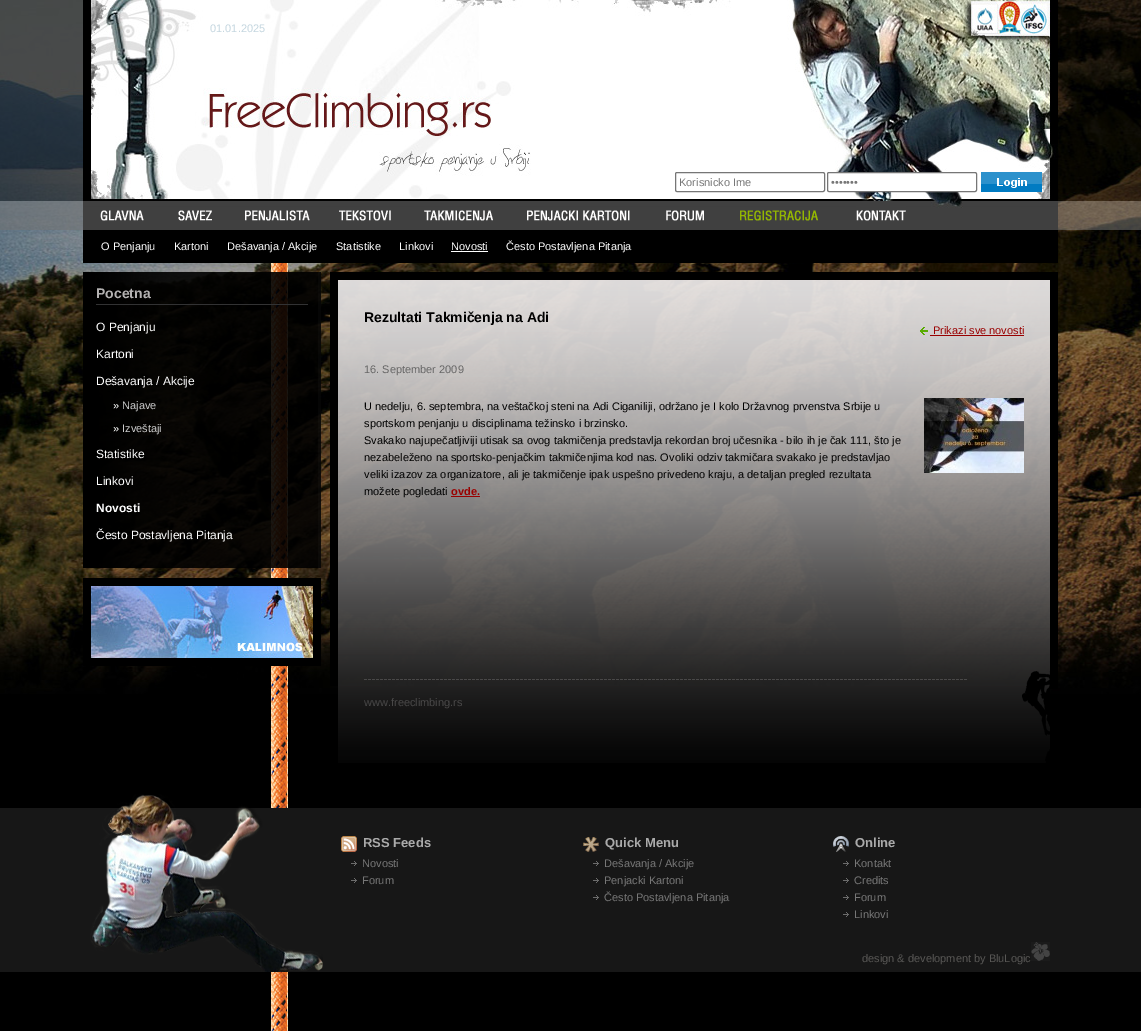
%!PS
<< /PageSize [1141 1031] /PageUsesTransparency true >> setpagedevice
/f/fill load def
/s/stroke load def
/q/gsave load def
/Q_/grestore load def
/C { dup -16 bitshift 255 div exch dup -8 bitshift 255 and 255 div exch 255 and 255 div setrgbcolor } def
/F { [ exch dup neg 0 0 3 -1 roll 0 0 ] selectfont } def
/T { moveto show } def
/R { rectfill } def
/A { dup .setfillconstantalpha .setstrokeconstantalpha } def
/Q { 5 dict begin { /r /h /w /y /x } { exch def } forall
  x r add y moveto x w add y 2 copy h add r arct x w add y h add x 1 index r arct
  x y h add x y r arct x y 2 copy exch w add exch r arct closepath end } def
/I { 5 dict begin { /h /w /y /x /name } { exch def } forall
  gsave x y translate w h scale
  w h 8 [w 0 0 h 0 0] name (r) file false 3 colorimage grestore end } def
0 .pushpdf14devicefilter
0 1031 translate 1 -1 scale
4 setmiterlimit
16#000000 C
0 0 1141 1031 R
(1.rgb) 0 0 1141 694 I
(2.rgb) 271 263 17 768 I
0.5 A
0 0 1141 201 R
0.56 A
16#727272 C
0 201 1141 29 R
1 A
16#000000 C
83 230 975 33 R
(3.rgb) 83 0 975 230 I
/LiberationSans-Regular 11 F
16#C4D6DF C
(01.01.2025) 210 32 T
16#767676 C
675.5 172.5 149 19 1.5 Q s
16#777777 C
(Korisnicko Ime) 679 186 T
16#FFFFFF C
827.5 172.5 149 19 1.5 Q q f Q_
16#767676 C
s
16#777777 C
(•••••••) 831 186 T
(4.rgb) 981 172 61 20 I
(5.rgb) 178 210 34 11 I
(6.rgb) 245 210 65 11 I
(7.rgb) 339 210 52 11 I
(8.rgb) 424 210 69 11 I
(9.rgb) 527 210 103 11 I
(10.rgb) 666 210 38 11 I
(11.rgb) 740 210 78 11 I
(12.rgb) 856 201 50 20 I
(13.rgb) 100 210 44 11 I
16#FFFFFF C
(O Penjanju) 101 250 T
(Kartoni) 174 250 T
(Dešavanja / Akcije) 227 250 T
(Statistike) 336 250 T
(Linkovi) 399 250 T
(Novosti) 451 250 T
451 251 37 1 R
(Često Postavljena Pitanja) 506 250 T
(14.rgb) 83 272 238 296 I
16#323233 C
96 304 212 1 R
/LiberationSans-Bold 14 F
16#B4B2B2 C
(Pocetna) 96 298 T
/LiberationSans-Regular 12 F
16#FFFFFF C
(O Penjanju) 96 331 T
(Kartoni) 96 358 T
(Dešavanja / Akcije) 96 385 T
/LiberationSans-Regular 11 F
(») 113 409 T
16#CCCCCC C
(Najave) 122 409 T
16#FFFFFF C
(») 113 432 T
16#CCCCCC C
(Izveštaji) 122 432 T
/LiberationSans-Regular 12 F
16#FFFFFF C
(Statistike) 96 458 T
(Linkovi) 96 485 T
/LiberationSans-Bold 12 F
(Novosti) 96 512 T
/LiberationSans-Regular 12 F
(Često Postavljena Pitanja) 96 539 T
16#000000 C
83 578 238 88 R
(15.rgb) 91 586 222 72 I
330 272 728 8 R
1050 272 8 417 R
330 272 8 414 R
(16.rgb) 338 280 712 483 I
/LiberationSans-Bold 14 F
(Rezultati Takmičenja na Adi) 364 322 T
(17.rgb) 920 327 8 8 I
/LiberationSans-Regular 11 F
16#990000 C
(Prikazi sve novosti) 933 334 T
930 335 94 1 R
16#666666 C
(16. September 2009) 364 373 T
16#000000 C
(U nedelju, 6. septembra, na veštačkoj steni na Adi Ciganiliji, održano je I kolo Državnog prvenstva Srbije u) 364 410 T
(sportskom penjanju u disciplinama težinsko i brzinsko.) 364 427 T
(Svakako najupečatljiviji utisak sa ovog takmičenja predstavlja rekordan broj učesnika - bilo ih je čak 111, što je) 364 444 T
(nezabeleženo na sportsko-penjačkim takmičenjima kod nas. Ovoliki odziv takmičara svakako je predstavljao) 364 461 T
(veliki izazov za organizatore, ali je takmičenje ipak uspešno privedeno kraju, a detaljan pregled rezultata) 364 478 T
(možete pogledati) 364 495 T
/LiberationSans-Bold 11 F
16#990000 C
(ovde.) 451 495 T
451 496 29 1 R
(18.rgb) 924 398 100 75 I
(19.rgb) 364 679 603 1 I
/LiberationSans-Regular 11 F
16#494848 C
(www.freeclimbing.rs) 364 706 T
(20.rgb) 1022 671 28 92 I
16#171717 C
0 808 1141 164 R
(21.rgb) 90 794 233 178 I
(22.rgb) 341 836 16 16 I
/LiberationSans-Bold 13 F
16#AAAAAA C
(RSS Feeds) 363 847 T
(23.rgb) 351 861 6 5 I
/LiberationSans-Regular 11 F
16#777777 C
(Novosti) 362 867 T
(23.rgb) 351 878 6 5 I
(Forum) 362 884 T
(24.rgb) 583 837 16 15 I
/LiberationSans-Bold 13 F
16#AAAAAA C
(Quick Menu) 605 847 T
(23.rgb) 593 861 6 5 I
/LiberationSans-Regular 11 F
16#777777 C
(Dešavanja / Akcije) 604 867 T
(23.rgb) 593 878 6 5 I
(Penjacki Kartoni) 604 884 T
(23.rgb) 593 895 6 5 I
(Često Postavljena Pitanja) 604 901 T
(25.rgb) 833 836 16 16 I
/LiberationSans-Bold 13 F
16#AAAAAA C
(Online) 855 847 T
(23.rgb) 843 861 6 5 I
/LiberationSans-Regular 11 F
16#777777 C
(Kontakt) 854 867 T
(23.rgb) 843 878 6 5 I
(Credits) 854 884 T
(23.rgb) 843 895 6 5 I
(Forum) 854 901 T
(23.rgb) 843 912 6 5 I
(Linkovi) 854 918 T
16#585755 C
(design & development by BluLogic) 862 962 T
(26.rgb) 1031 942 19 19 I
.poppdf14devicefilter showpage
